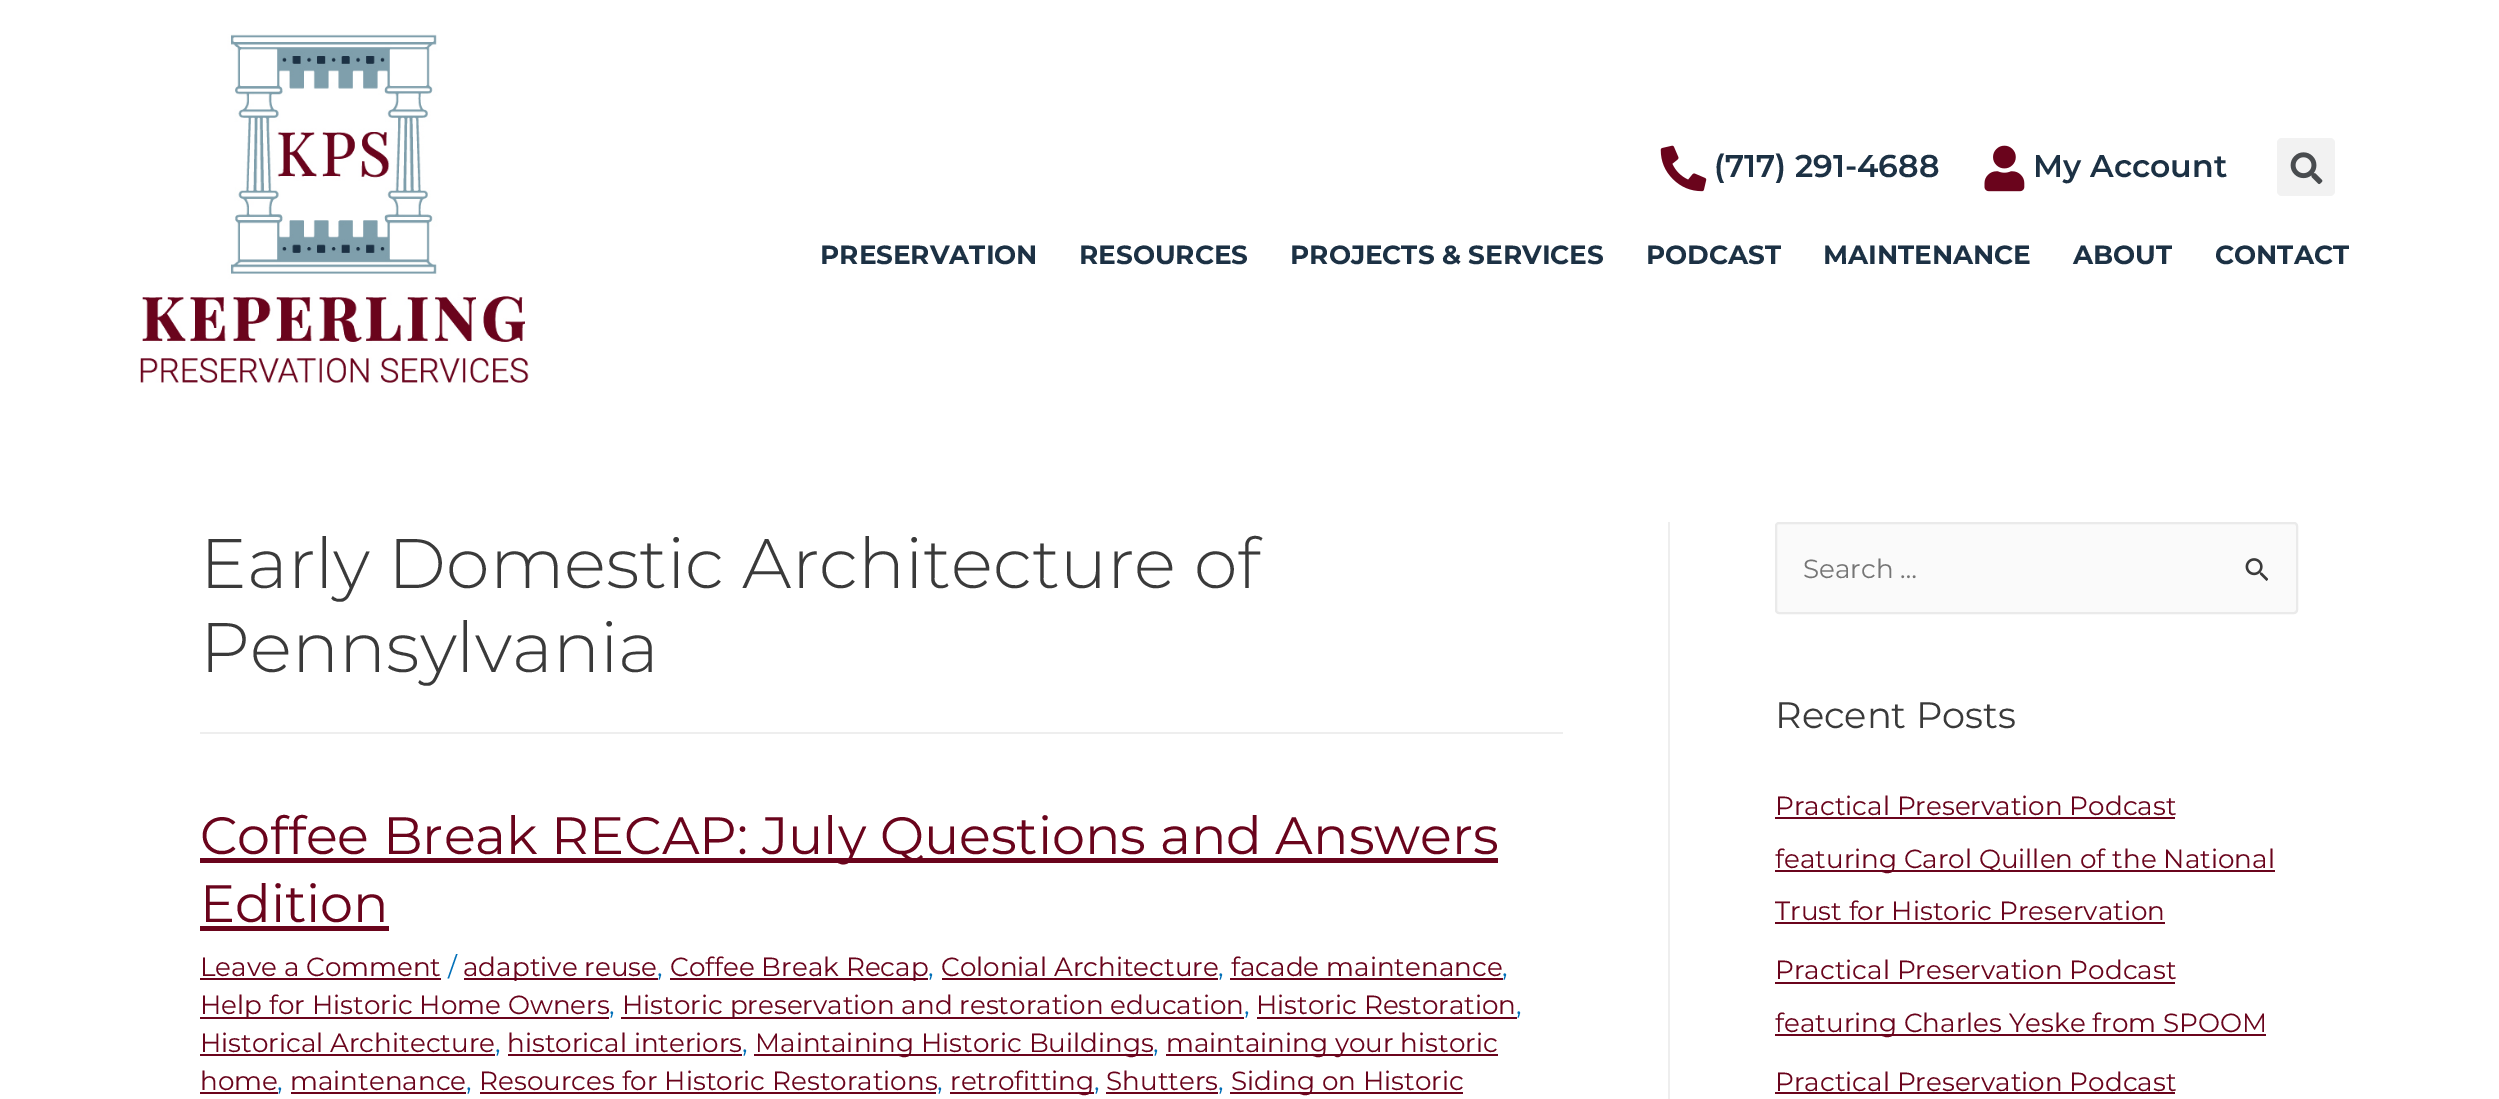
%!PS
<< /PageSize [2499 1099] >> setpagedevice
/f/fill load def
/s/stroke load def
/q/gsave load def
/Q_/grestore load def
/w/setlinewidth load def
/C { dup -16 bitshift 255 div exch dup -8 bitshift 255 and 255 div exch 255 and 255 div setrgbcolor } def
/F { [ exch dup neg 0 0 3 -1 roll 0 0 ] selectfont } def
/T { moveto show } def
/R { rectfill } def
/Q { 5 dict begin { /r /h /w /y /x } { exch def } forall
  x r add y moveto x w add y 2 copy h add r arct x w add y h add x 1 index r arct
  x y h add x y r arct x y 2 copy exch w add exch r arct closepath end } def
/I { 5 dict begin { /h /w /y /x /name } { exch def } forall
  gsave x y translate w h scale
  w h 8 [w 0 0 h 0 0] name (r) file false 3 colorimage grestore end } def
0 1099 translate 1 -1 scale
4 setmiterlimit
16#FFFFFF C
0 0 2499 1099 R
(1.rgb) 140 34 389 349 I
(2.rgb) 1660 145 47 47 I
/Montserrat-SemiBold 31.5 F
16#1C3144 C
(\(717\) 291-4688) 1714 177 T
(3.rgb) 1984 145 41 47 I
(My Account) 2033 177 T
16#F2F2F2 C
2277 138 58 58 5 Q f
(4.rgb) 2290 152 33 33 I
/Montserrat-Bold 26.25 F
16#1C3144 C
(PRESERVATION) 820 264 T
(RESOURCES) 1079 264 T
(PROJECTS & SERVICES) 1290 264 T
(PODCAST) 1646 264 T
(MAINTENANCE) 1823 264 T
(ABOUT) 2073 264 T
(CONTACT) 2215 264 T
16#EEEEEE C
1668 522 2 577 R
200 732 1363 2 R
/Montserrat-Light 70 F
16#3A3A3A C
(Early Domestic Architecture of) 200 588 T
(Pennsylvania) 200 672 T
16#6A041C C
200 858 1298 5 R
/Montserrat-Regular 52.5 F
(Coffee Break RECAP: July Questions and Answers) 200 854 T
(Edition) 200 922 T
200 926 189 5 R
/Montserrat-Regular 26.25 F
(Leave a Comment) 200 976 T
200 978 241 2 R
16#0170B9 C
(/) 448 976 T
16#6A041C C
464 978 194 2 R
(adaptive reuse) 463 976 T
16#0170B9 C
(,) 657 976 T
16#6A041C C
670 978 258 2 R
(Coffee Break Recap) 670 976 T
16#0170B9 C
(,) 928 976 T
16#6A041C C
(Colonial Architecture) 941 976 T
16#0170B9 C
(,) 1218 976 T
16#6A041C C
942 978 276 2 R
(facade maintenance) 1231 976 T
16#0170B9 C
(,) 1502 976 T
16#6A041C C
1230 978 273 2 R
200 1017 409 2 R
(Help for Historic Home Owners) 200 1014 T
16#0170B9 C
(,) 609 1014 T
16#6A041C C
621 1017 623 2 R
(Historic preservation and restoration education) 622 1014 T
16#0170B9 C
(,) 1244 1014 T
16#6A041C C
(Historic Restoration) 1256 1014 T
16#0170B9 C
(,) 1516 1014 T
16#6A041C C
1257 1017 260 2 R
(Historical Architecture) 200 1052 T
16#0170B9 C
(,) 495 1052 T
16#6A041C C
200 1054 295 2 R
(historical interiors) 507 1052 T
16#0170B9 C
(,) 742 1052 T
16#6A041C C
508 1054 234 2 R
754 1054 399 2 R
(Maintaining Historic Buildings) 755 1052 T
16#0170B9 C
(,) 1153 1052 T
16#6A041C C
1166 1054 332 2 R
(maintaining your historic) 1166 1052 T
(home) 200 1090 T
16#0170B9 C
(,) 277 1090 T
16#6A041C C
200 1092 78 2 R
(maintenance) 290 1090 T
16#0170B9 C
(,) 466 1090 T
16#6A041C C
291 1092 175 2 R
(Resources for Historic Restorations) 479 1090 T
16#0170B9 C
(,) 937 1090 T
16#6A041C C
480 1092 456 2 R
950 1092 144 2 R
(retrofitting) 950 1090 T
16#0170B9 C
(,) 1094 1090 T
16#6A041C C
(Shutters) 1106 1090 T
16#0170B9 C
(,) 1218 1090 T
16#6A041C C
1106 1092 112 2 R
1230 1092 233 2 R
(Siding on Historic) 1231 1090 T
16#FAFAFA C
1776 523 521 90 3 Q q f Q_
16#EAEAEA C
2 w
s
16#757575 C
(Search …) 1803 578 T
(5.rgb) 2245 558 23 23 I
/Montserrat-Regular 36.75 F
16#3A3A3A C
(Recent Posts) 1775 728 T
/Montserrat-Regular 26.25 F
16#6A041C C
(Practical Preservation Podcast) 1775 815 T
1775 817 400 2 R
1775 870 500 2 R
(featuring Carol Quillen of the National) 1775 868 T
q
1775 781 523 157 rectclip
(Trust for Historic Preservation) 1775 920 T
Q_
1775 922 390 2 R
(Practical Preservation Podcast) 1775 979 T
1775 982 400 2 R
1775 1034 491 2 R
(featuring Charles Yeske from SPOOM) 1775 1032 T
(Practical Preservation Podcast) 1775 1091 T
1775 1092 400 2 R
showpage
